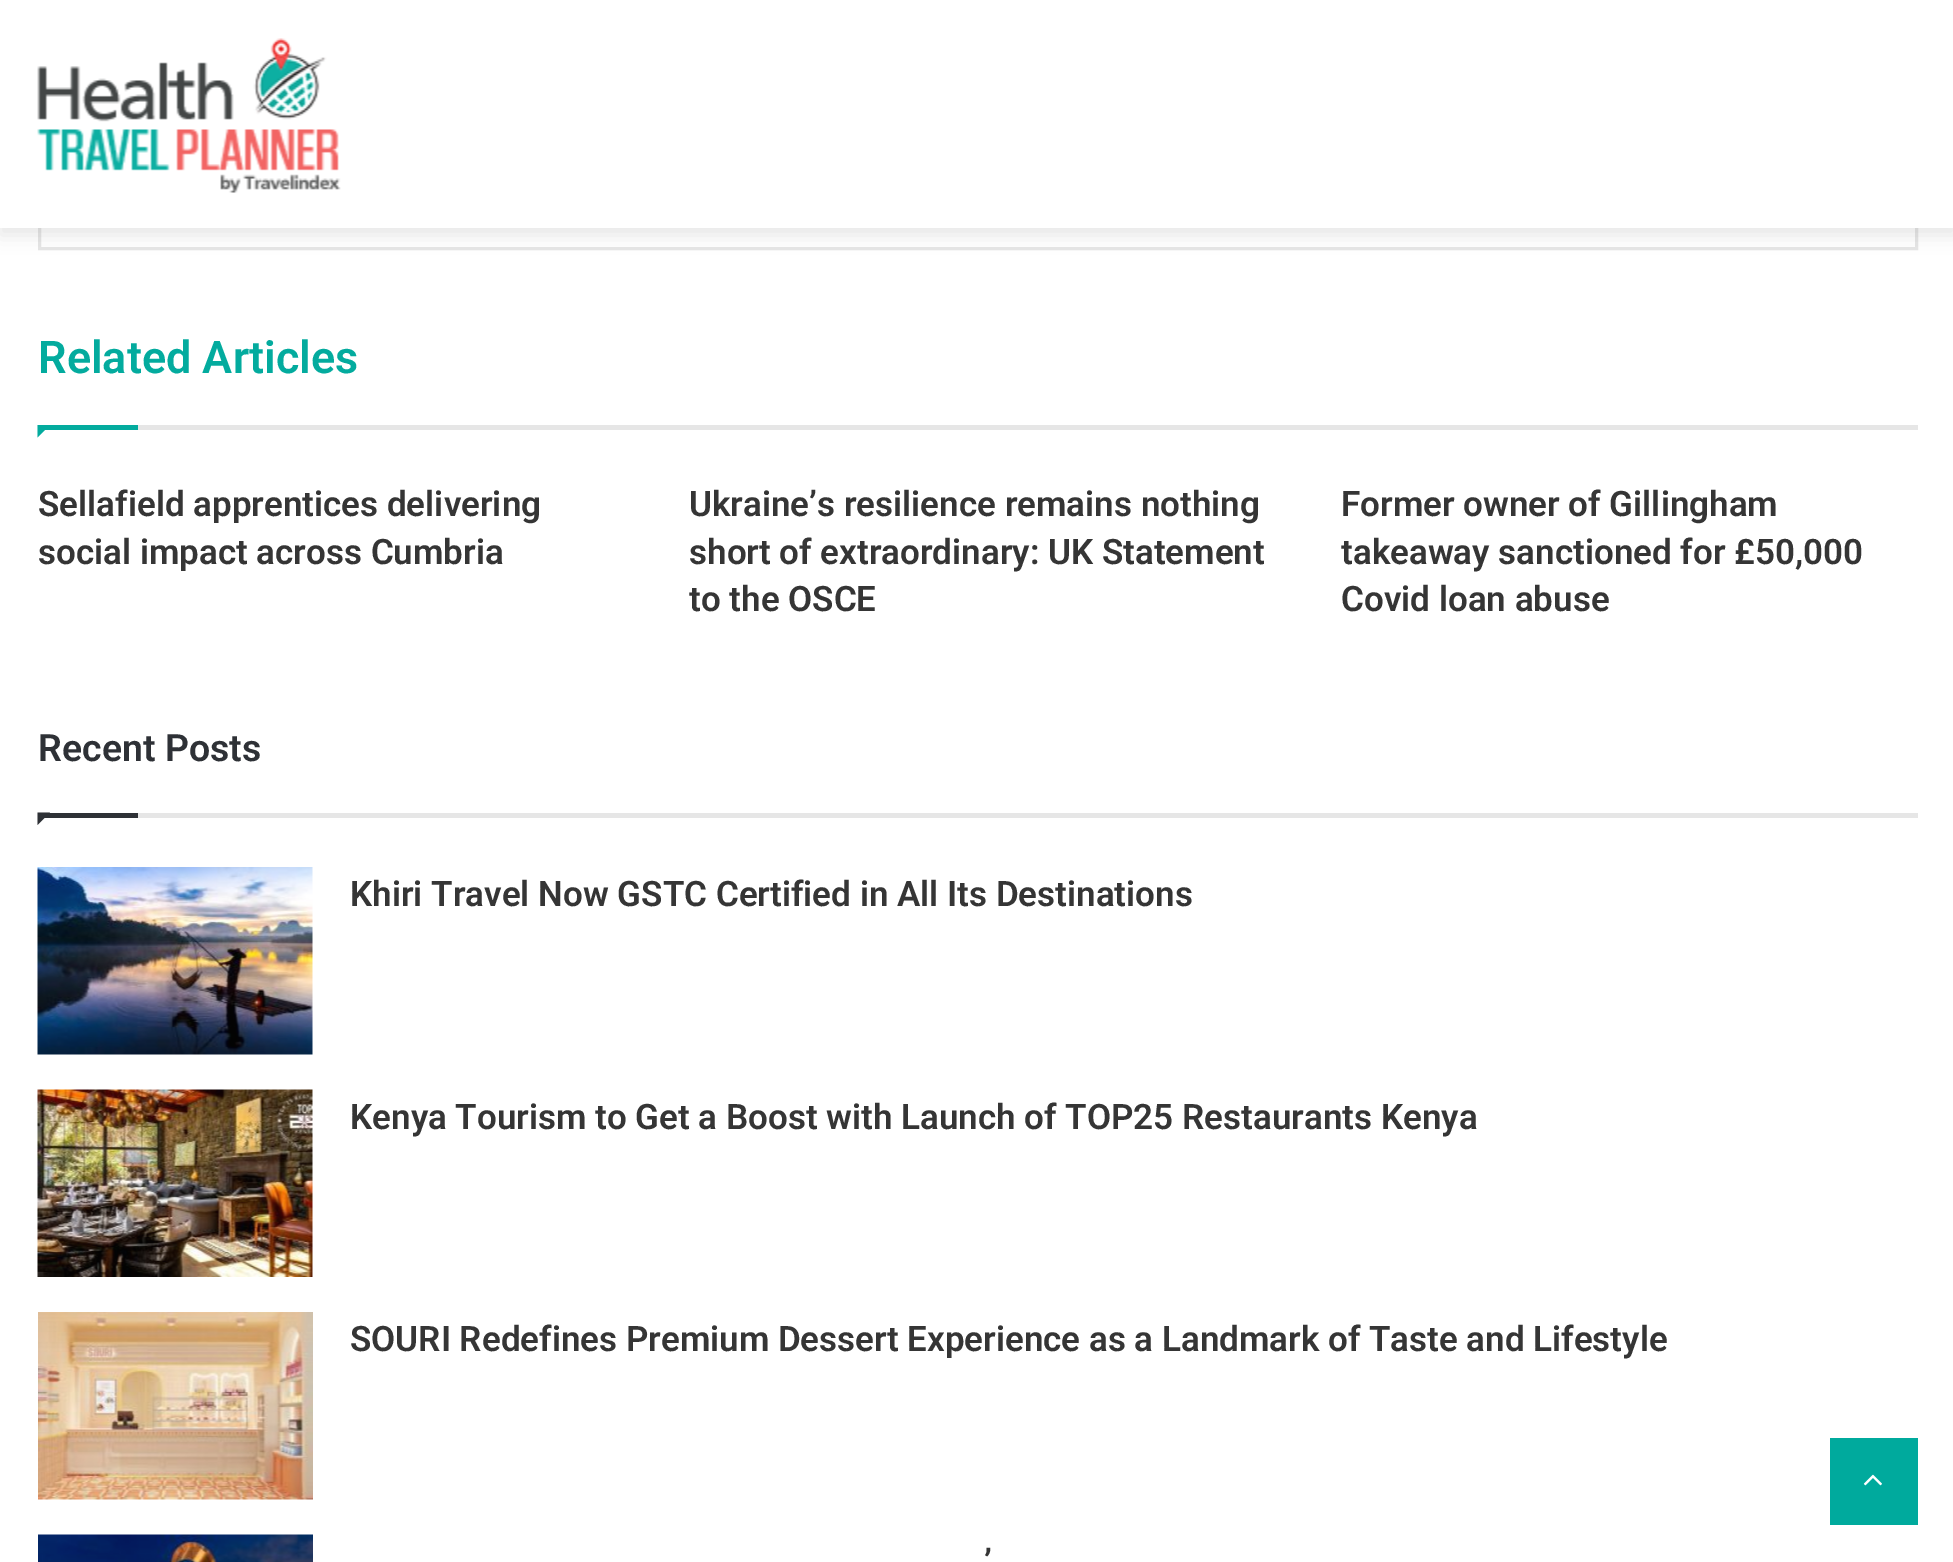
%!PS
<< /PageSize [1953 1562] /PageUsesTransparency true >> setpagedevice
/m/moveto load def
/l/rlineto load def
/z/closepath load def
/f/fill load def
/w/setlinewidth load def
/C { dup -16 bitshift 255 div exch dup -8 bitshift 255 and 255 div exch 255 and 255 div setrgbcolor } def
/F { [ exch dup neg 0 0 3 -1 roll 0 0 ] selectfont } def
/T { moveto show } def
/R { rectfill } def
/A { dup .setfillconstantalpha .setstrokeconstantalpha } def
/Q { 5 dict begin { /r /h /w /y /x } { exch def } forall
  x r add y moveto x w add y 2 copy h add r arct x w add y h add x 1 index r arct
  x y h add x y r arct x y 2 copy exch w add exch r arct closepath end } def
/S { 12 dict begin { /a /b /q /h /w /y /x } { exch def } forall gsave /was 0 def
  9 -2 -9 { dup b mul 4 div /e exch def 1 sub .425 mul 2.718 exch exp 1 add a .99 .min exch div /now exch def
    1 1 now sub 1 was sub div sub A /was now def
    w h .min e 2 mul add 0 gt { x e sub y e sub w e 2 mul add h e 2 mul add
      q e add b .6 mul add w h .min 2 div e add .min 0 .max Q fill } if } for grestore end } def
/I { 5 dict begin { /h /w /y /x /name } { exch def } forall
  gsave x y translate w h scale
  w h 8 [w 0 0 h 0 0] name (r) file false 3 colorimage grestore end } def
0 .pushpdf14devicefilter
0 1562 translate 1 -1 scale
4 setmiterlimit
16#FFFFFF C
0 0 1953 1562 R
16#E6E6E6 C
3 w
39.5 71.5 1877 177 rectstroke
16#000000 C
0 8 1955 227 0 9 .1 S
16#FFFFFF C
0 0 1953 228 R
(1.rgb) 37 38 304 155 I
16#E6E6E6 C
138 425 1780 5 R
/Roboto-SemiBold 45 F
16#03AB9E C
(Related Articles) 38 373 T
37.5 425 m 12.5 0 l -12.5 12.5 l z f
38 425 100 5 R
/Roboto-SemiBold 35 F
16#353535 C
(Sellafield apprentices delivering) 38 516 T
(social impact across Cumbria) 38 564 T
(Ukraine’s resilience remains nothing) 689 516 T
(short of extraordinary: UK Statement) 689 564 T
(to the OSCE) 689 611 T
(Former owner of Gillingham) 1341 516 T
(takeaway sanctioned for £50,000) 1341 564 T
(Covid loan abuse) 1341 611 T
16#E6E6E6 C
138 813 1780 5 R
/Roboto-SemiBold 37.5 F
16#2E3136 C
(Recent Posts) 38 761 T
37.5 812.5 m 12.5 0 l -12.5 12.5 l z f
38 813 100 5 R
(2.rgb) 37 867 276 188 I
/Roboto-SemiBold 35 F
16#353535 C
(Khiri Travel Now GSTC Certified in All Its Destinations) 350 906 T
(3.rgb) 37 1089 276 188 I
(Kenya Tourism to Get a Boost with Launch of TOP25 Restaurants Kenya) 350 1129 T
(4.rgb) 38 1312 275 188 I
(SOURI Redefines Premium Dessert Experience as a Landmark of Taste and Lifestyle) 350 1351 T
(5.rgb) 38 1534 275 28 I
(’) 984 1574 T
16#00AA9D C
1830 1438 88 87 R
(6.rgb) 1863 1474 19 12 I
.poppdf14devicefilter showpage
